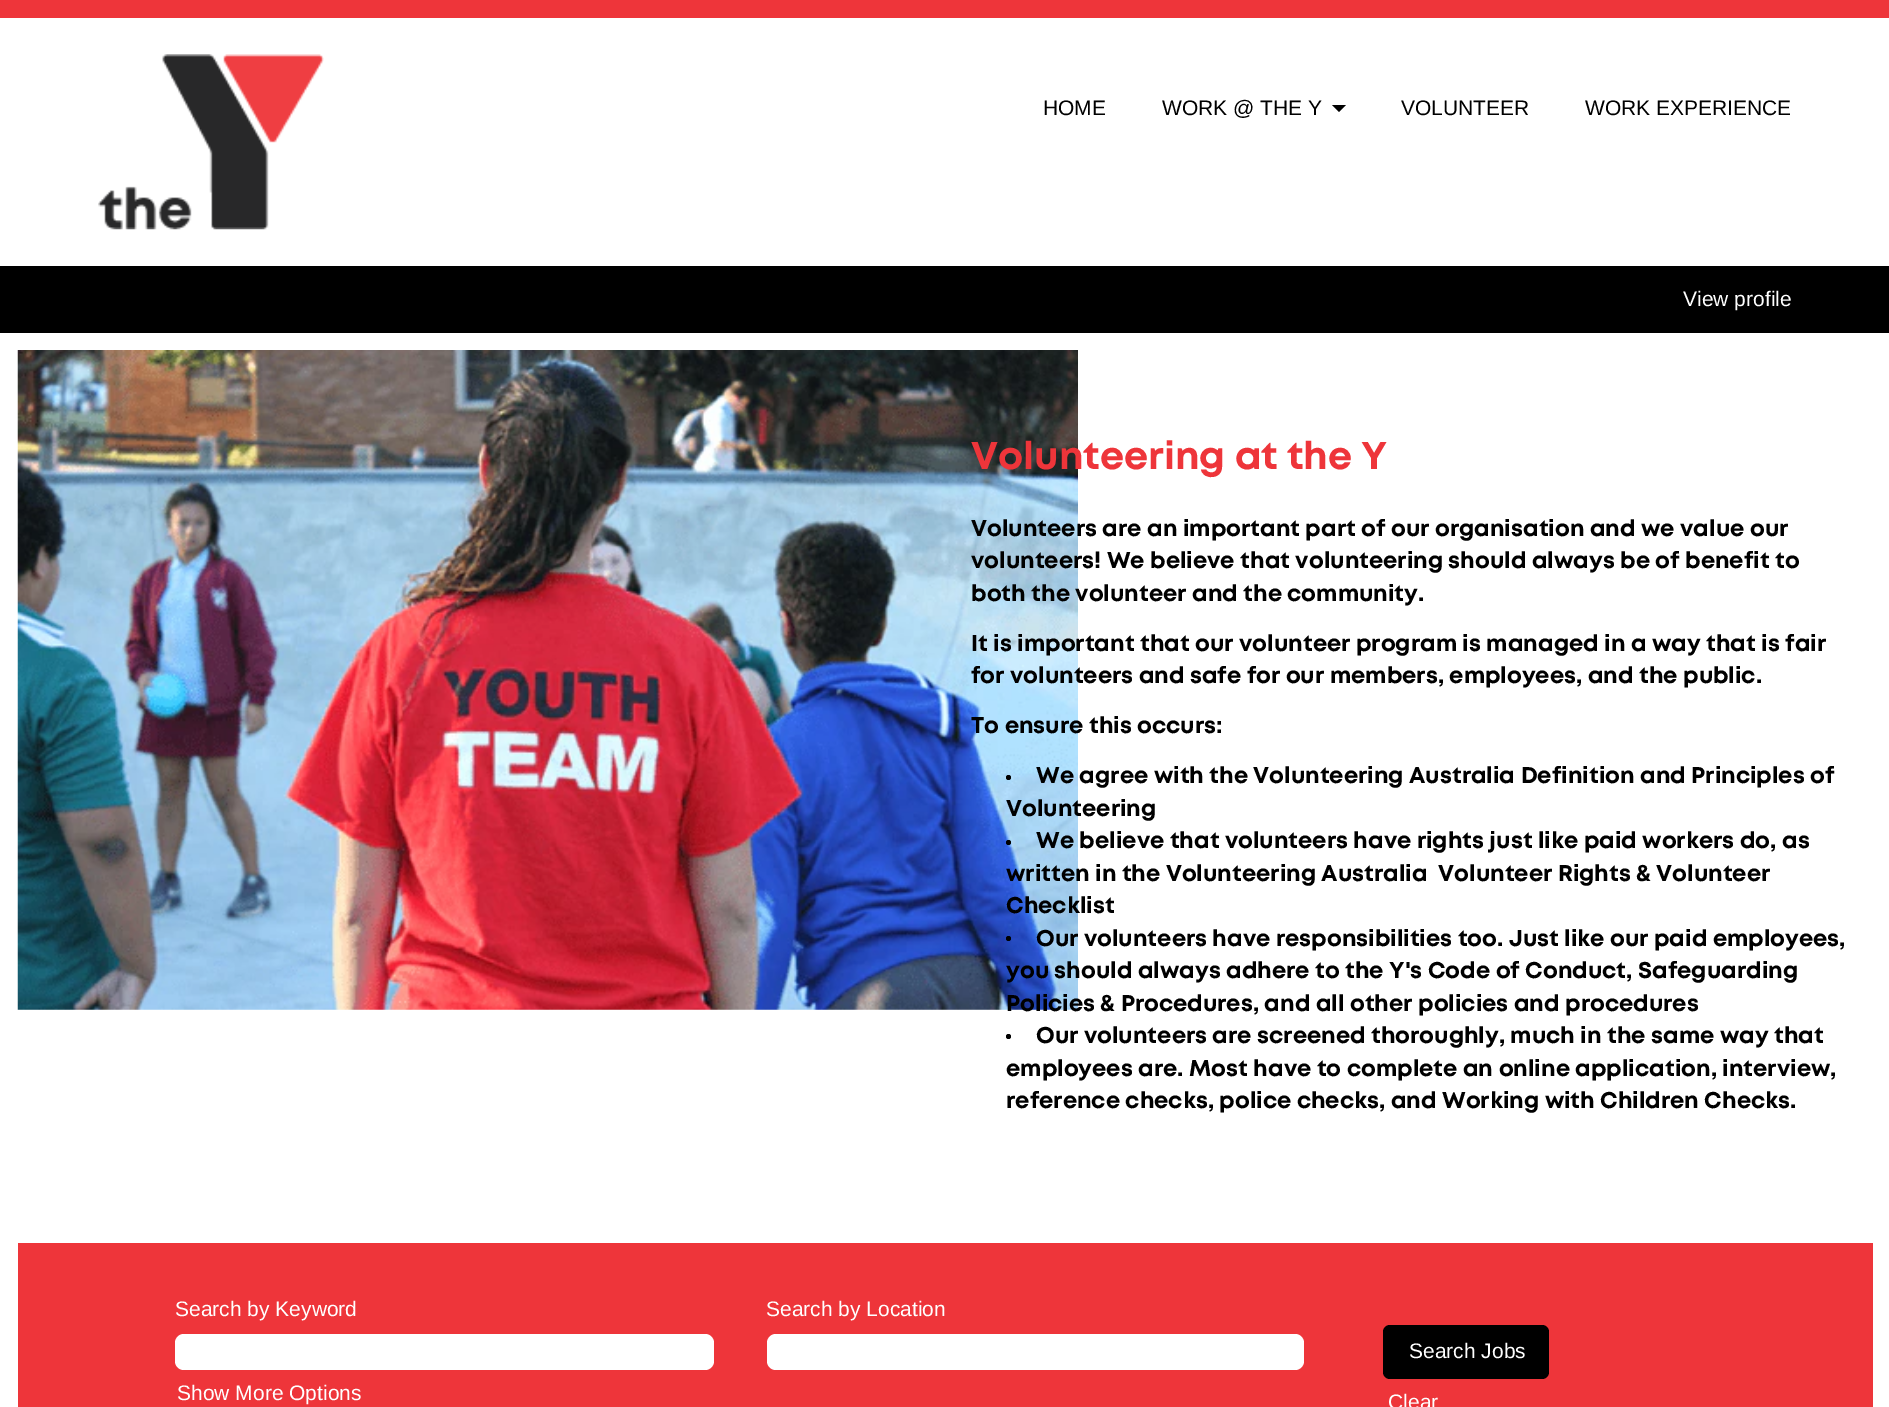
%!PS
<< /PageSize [1889 1407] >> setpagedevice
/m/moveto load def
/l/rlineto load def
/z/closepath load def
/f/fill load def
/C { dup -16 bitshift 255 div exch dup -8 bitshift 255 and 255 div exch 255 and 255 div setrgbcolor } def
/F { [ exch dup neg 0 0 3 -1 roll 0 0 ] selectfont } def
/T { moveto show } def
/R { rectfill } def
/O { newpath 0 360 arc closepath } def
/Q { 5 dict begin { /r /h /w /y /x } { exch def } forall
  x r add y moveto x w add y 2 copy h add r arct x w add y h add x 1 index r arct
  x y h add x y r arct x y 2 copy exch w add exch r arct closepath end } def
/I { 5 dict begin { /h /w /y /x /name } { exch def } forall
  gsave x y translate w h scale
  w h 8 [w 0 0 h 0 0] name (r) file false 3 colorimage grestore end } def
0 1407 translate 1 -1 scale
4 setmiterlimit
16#FFFFFF C
0 0 1889 1407 R
16#EE353A C
0 0 1889 18 R
(1.rgb) 98 54 226 176 I
/LiberationSans-Regular 21 F
16#000000 C
(HOME) 1043 115 T
(WORK @ THE Y) 1162 115 T
1332 105 m 14 0 l -7 7 l z f
(VOLUNTEER) 1401 115 T
(WORK EXPERIENCE) 1585 115 T
0 266 1889 67 R
16#FFFFFF C
(View profile) 1683 306 T
(2.rgb) 17 350 1061 660 I
/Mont-Bold 38.5 F
16#EE353A C
(Volunteering at the Y) 971 469 T
/Mont-Bold 22.75 F
16#000000 C
(Volunteers are an important part of our organisation and we value our) 971 536 T
(volunteers! We believe that volunteering should always be of benefit to) 971 568 T
(both the volunteer and the community.) 971 601 T
(It is important that our volunteer program is managed in a way that is fair) 971 651 T
(for volunteers and safe for our members, employees, and the public.) 971 683 T
(To ensure this occurs:) 971 733 T
1008.5 777.5 2.5 O f
(We agree with the Volunteering Australia Definition and Principles of) 1036 783 T
(Volunteering) 1006 816 T
1008.5 842.5 2.5 O f
(We believe that volunteers have rights just like paid workers do, as) 1036 848 T
(written in the Volunteering Australia  Volunteer Rights & Volunteer) 1006 881 T
(Checklist) 1006 913 T
1008.5 938.5 2.5 O f
(Our volunteers have responsibilities too. Just like our paid employees,) 1036 946 T
(you should always adhere to the Y's Code of Conduct, Safeguarding) 1006 978 T
(Policies & Procedures, and all other policies and procedures) 1006 1011 T
1008.5 1036.5 2.5 O f
(Our volunteers are screened thoroughly, much in the same way that) 1036 1043 T
(employees are. Most have to complete an online application, interview,) 1006 1076 T
(reference checks, police checks, and Working with Children Checks.) 1006 1108 T
16#EE353A C
18 1243 1855 164 R
/LiberationSans-Regular 21 F
16#FFFFFF C
(Search by Keyword) 175 1316 T
175 1334 539 36 9 Q f
(Search by Location) 766 1316 T
767 1334 537 36 9 Q f
(Show More Options) 177 1400 T
16#000000 C
1383 1325 166 54 7 Q f
16#FFFFFF C
(Search Jobs) 1409 1358 T
(Clear) 1388 1409 T
showpage
